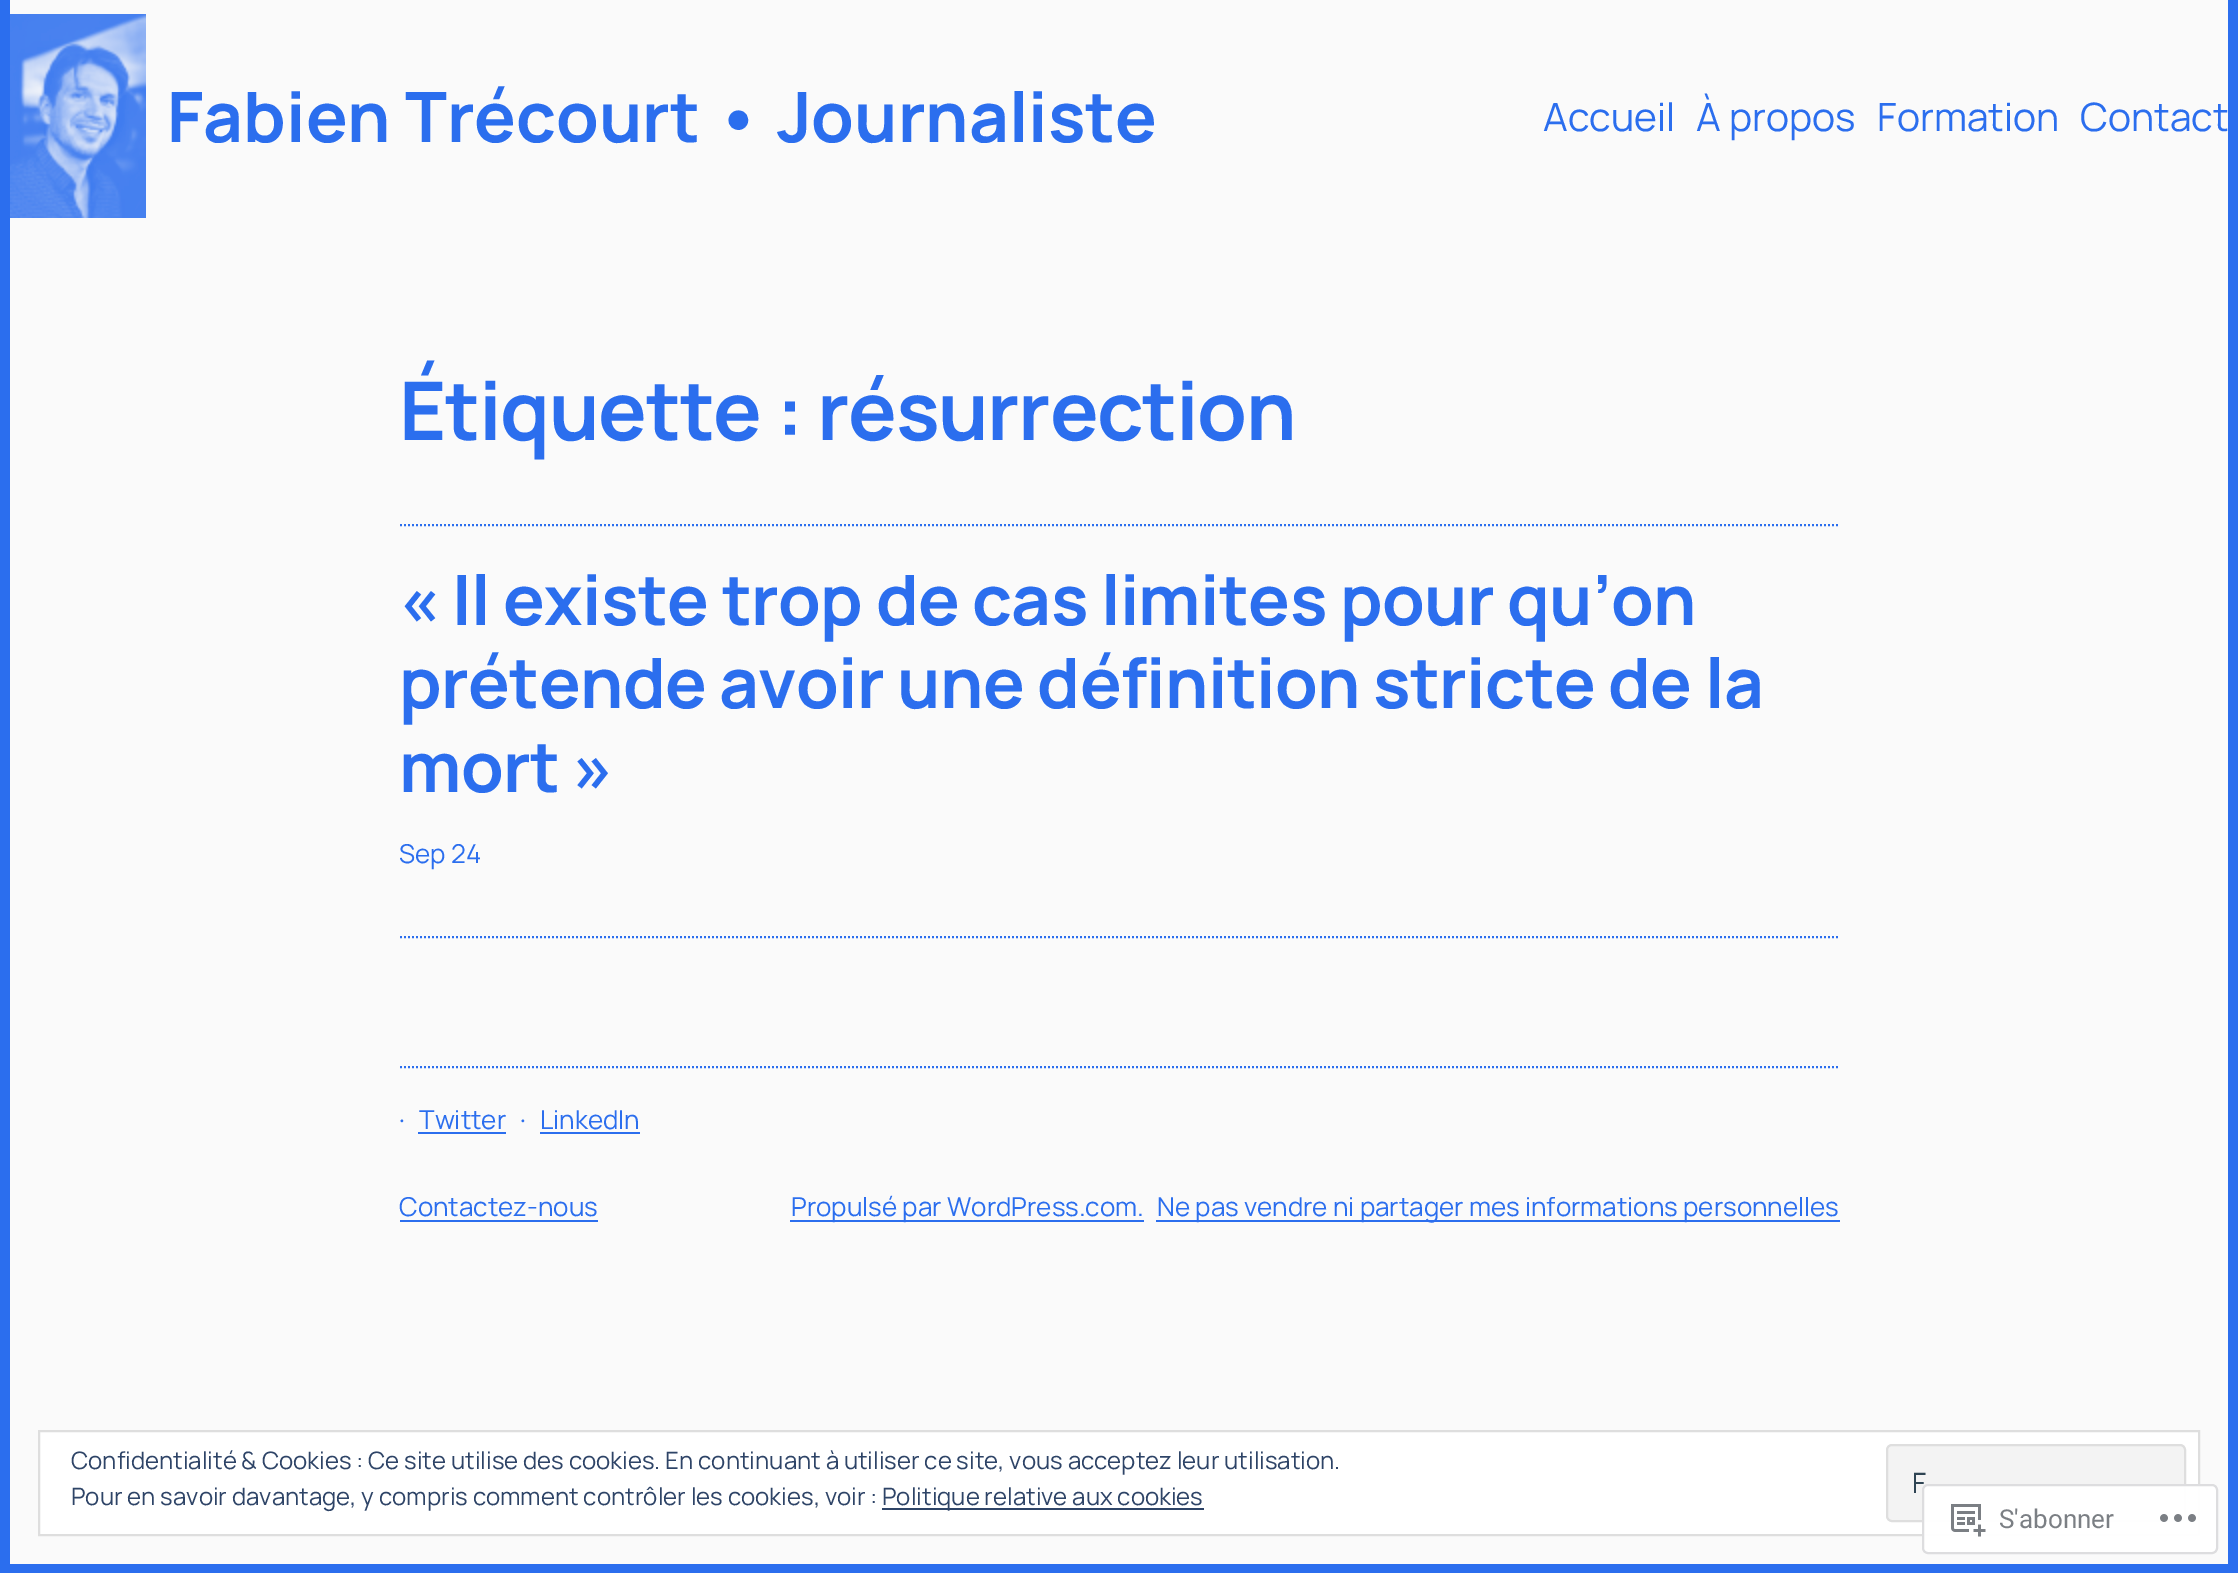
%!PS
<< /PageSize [2238 1573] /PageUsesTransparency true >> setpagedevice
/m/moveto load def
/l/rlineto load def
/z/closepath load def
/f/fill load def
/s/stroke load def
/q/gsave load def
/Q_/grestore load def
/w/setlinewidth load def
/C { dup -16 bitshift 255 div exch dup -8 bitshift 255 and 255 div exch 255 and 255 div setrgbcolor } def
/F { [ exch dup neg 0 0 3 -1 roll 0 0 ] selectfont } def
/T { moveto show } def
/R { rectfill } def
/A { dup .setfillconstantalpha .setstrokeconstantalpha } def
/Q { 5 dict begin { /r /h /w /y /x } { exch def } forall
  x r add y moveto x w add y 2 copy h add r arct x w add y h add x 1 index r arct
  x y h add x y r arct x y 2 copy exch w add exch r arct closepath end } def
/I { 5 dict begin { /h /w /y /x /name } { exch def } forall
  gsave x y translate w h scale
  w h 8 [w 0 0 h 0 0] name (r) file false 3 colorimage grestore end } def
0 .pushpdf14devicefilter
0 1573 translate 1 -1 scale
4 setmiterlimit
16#FAFAFA C
0 0 2238 1573 R
16#2B6EEE C
2228 0 10 1564 R
10 1564 2228 9 R
0 0 10 1573 R
(1.rgb) 10 14 136 204 I
/Manrope-Bold 69.4 F
(Fabien Trécourt • Journaliste) 167 142 T
/Manrope-Regular 39 F
(Accueil) 1543 131 T
(À propos) 1696 131 T
(Formation) 1877 131 T
(Contact) 2080 131 T
/Manrope-Bold 80.9 F
399 440 m -1.25 0 (Étiquette : résurrection) ashow
2 w
[2 2] 0 setdash
400 525 m 1440 0 l s
/Manrope-Bold 69.4 F
399 625 m -.65 0 (« Il existe trop de cas limites pour qu’on) ashow
399 708 m -.65 0 (prétende avoir une définition stricte de la) ashow
399 792 m -.65 0 (mort ») ashow
/Manrope-Regular 26 F
(Sep 24) 399 863 T
400 937 m 1440 0 l s
400 1067 m 1440 0 l s
(·) 399 1129 T
(Twitter) 419 1129 T
418 1132 88 2 R
(·) 520 1129 T
(LinkedIn) 540 1129 T
540 1132 100 2 R
(Contactez-nous) 399 1216 T
400 1220 198 2 R
790 1220 354 2 R
(Propulsé par WordPress.com.) 791 1216 T
1156 1220 684 2 R
(Ne pas vendre ni partager mes informations personnelles) 1157 1216 T
16#FFFFFF C
39 1431 m 2160 0 l 0 104 l -2160 0 l z q f Q_
16#DEDEDE C
[] 0 setdash
s
/Manrope-Regular 24 F
16#2E4467 C
(Confidentialité & Cookies : Ce site utilise des cookies. En continuant à utiliser ce site, vous acceptez leur utilisation.) 71 1469 T
16#F3F3F3 C
1887 1445 298 76 5 Q q f Q_
16#DEDEDE C
s
/Manrope-Regular 28 F
16#2E4453 C
(F) 1912 1493 T
/Manrope-Regular 24 F
16#2E4467 C
(Pour en savoir davantage, y compris comment contrôler les cookies, voir :) 71 1505 T
882 1508 322 2 R
(Politique relative aux cookies) 882 1505 T
0.98 A
16#FFFFFF C
1922 1484 296 70 6 Q f
16#DCDCDE C
1923 1485 294 68 5 Q s
1 A
(2.rgb) 1951 1504 35 33 I
/Roboto-Regular 26 F
16#7B7F84 C
(S'abonner) 1999 1528 T
(3.rgb) 2160 1514 36 8 I
.poppdf14devicefilter showpage
